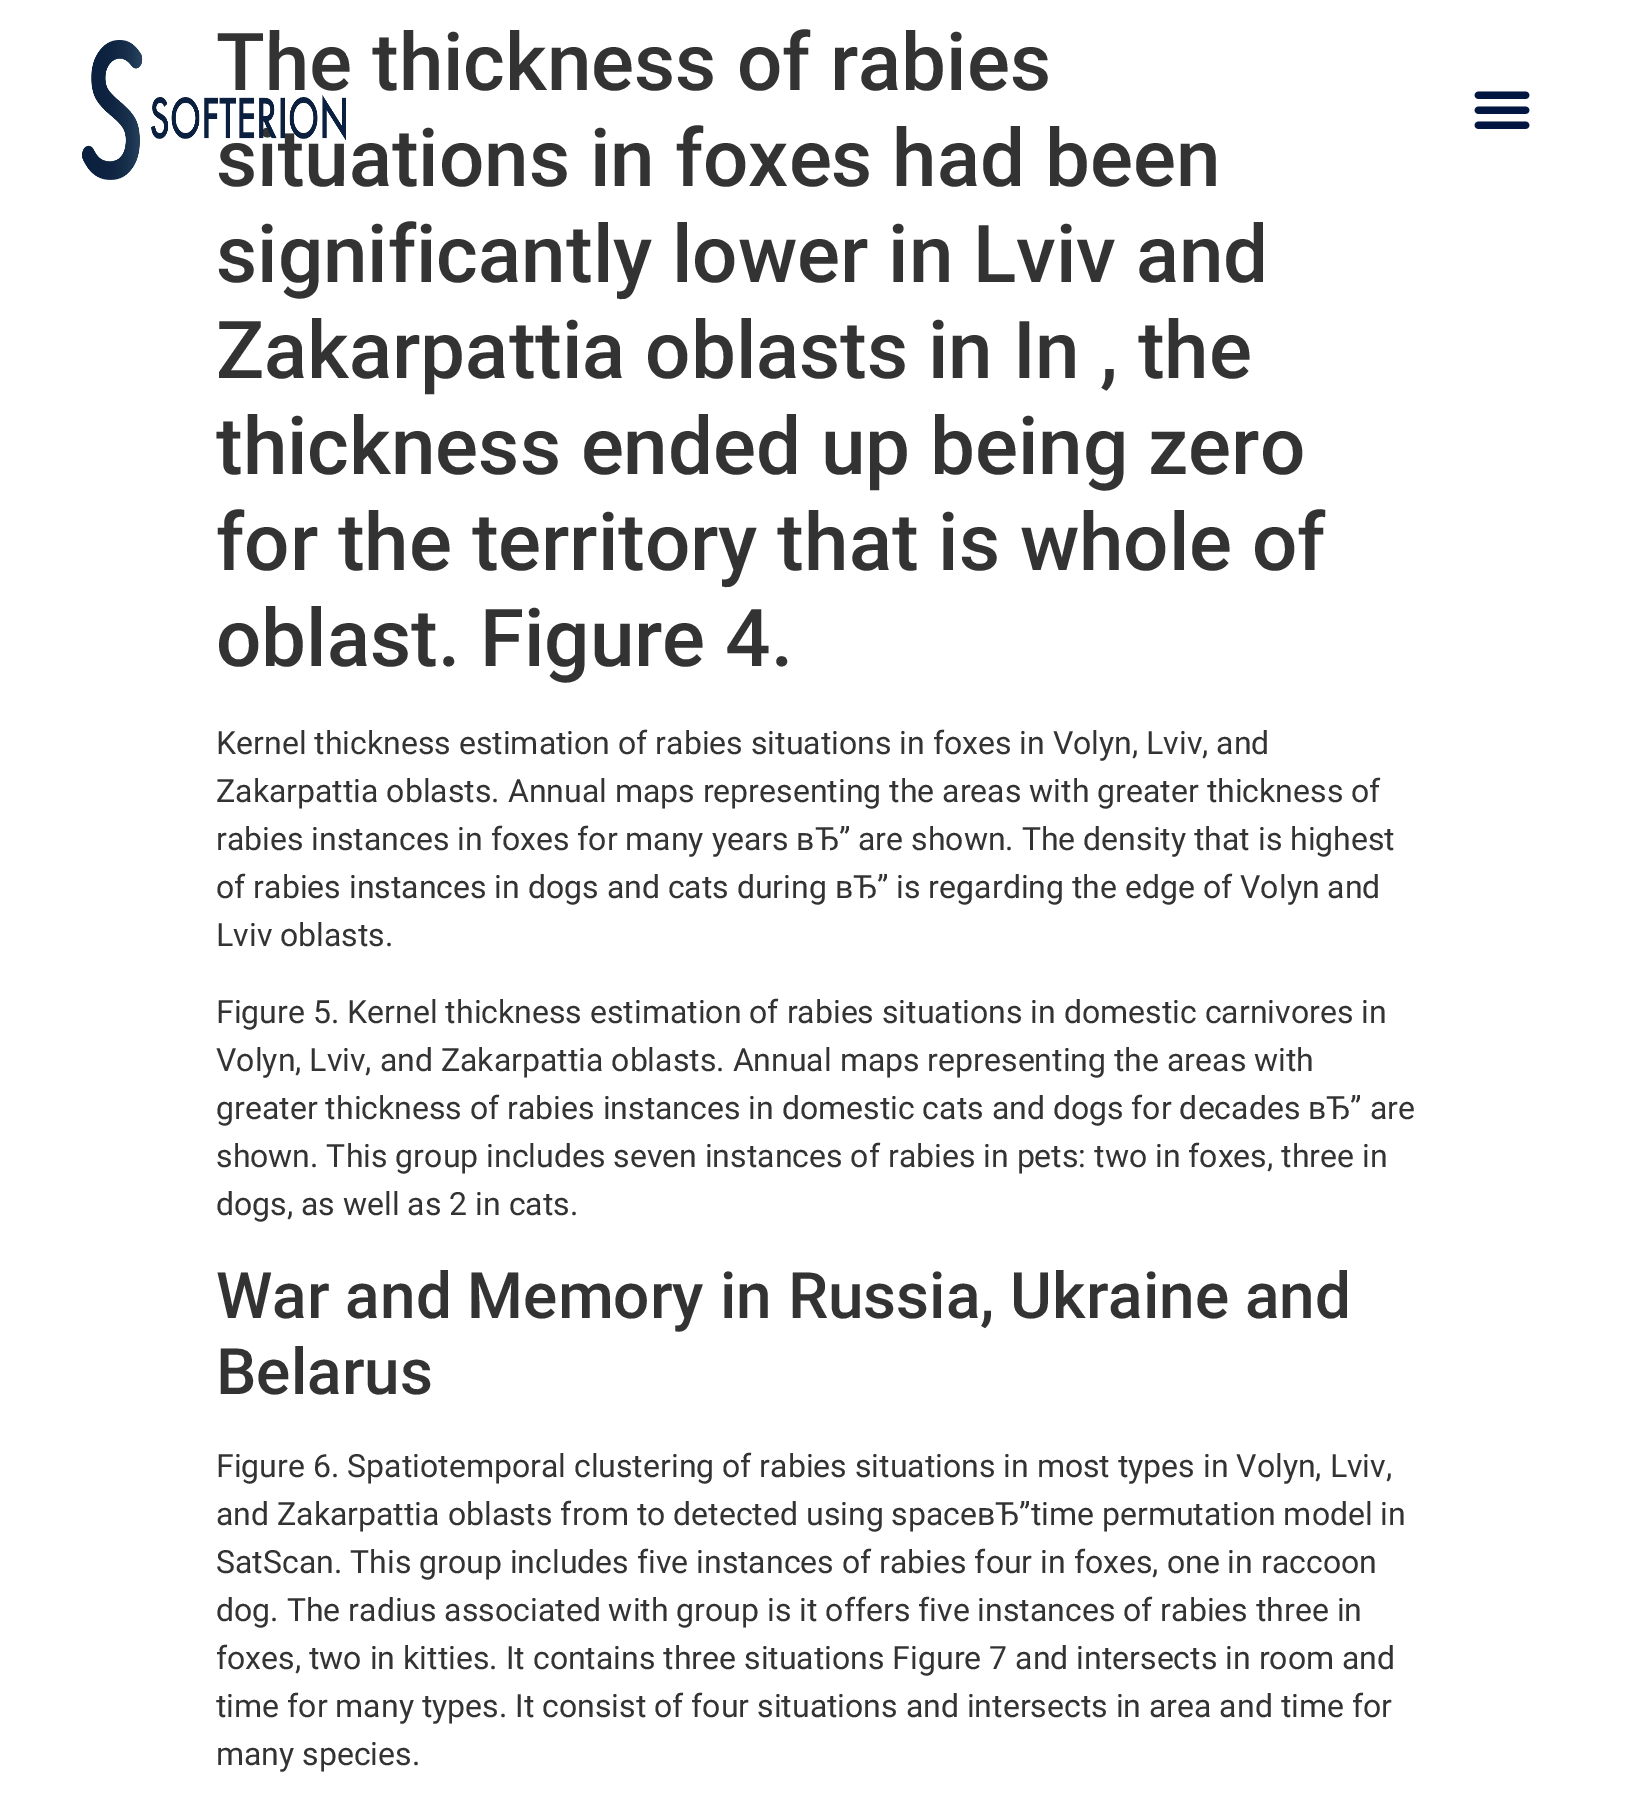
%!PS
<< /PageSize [1631 1799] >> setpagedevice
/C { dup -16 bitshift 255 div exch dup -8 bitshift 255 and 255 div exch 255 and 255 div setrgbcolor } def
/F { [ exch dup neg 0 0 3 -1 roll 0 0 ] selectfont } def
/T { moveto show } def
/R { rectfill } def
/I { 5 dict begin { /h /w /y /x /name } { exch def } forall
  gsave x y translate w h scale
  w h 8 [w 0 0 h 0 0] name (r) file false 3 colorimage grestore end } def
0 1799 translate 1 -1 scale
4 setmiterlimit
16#FFFFFF C
0 0 1631 1799 R
/Roboto-Medium 80 F
16#333333 C
(The thickness of rabies) 216 90 T
(situations in foxes had been) 216 186 T
(significantly lower in Lviv and) 216 282 T
(Zakarpattia oblasts in In , the) 216 378 T
(thickness ended up being zero) 216 474 T
(for the territory that is whole of) 216 570 T
(oblast. Figure 4.) 216 666 T
/Roboto-Regular 32 F
(Kernel thickness estimation of rabies situations in foxes in Volyn, Lviv, and) 216 754 T
(Zakarpattia oblasts. Annual maps representing the areas with greater thickness of) 216 802 T
(rabies instances in foxes for many years вЂ” are shown. The density that is highest) 216 850 T
(of rabies instances in dogs and cats during вЂ” is regarding the edge of Volyn and) 216 898 T
(Lviv oblasts.) 216 946 T
(Figure 5. Kernel thickness estimation of rabies situations in domestic carnivores in) 216 1023 T
(Volyn, Lviv, and Zakarpattia oblasts. Annual maps representing the areas with) 216 1071 T
(greater thickness of rabies instances in domestic cats and dogs for decades вЂ” are) 216 1119 T
(shown. This group includes seven instances of rabies in pets: two in foxes, three in) 216 1167 T
(dogs, as well as 2 in cats.) 216 1215 T
/Roboto-Medium 64 F
(War and Memory in Russia, Ukraine and) 216 1318 T
(Belarus) 216 1394 T
/Roboto-Regular 32 F
(Figure 6. Spatiotemporal clustering of rabies situations in most types in Volyn, Lviv,) 216 1477 T
(and Zakarpattia oblasts from to detected using spaceвЂ”time permutation model in) 216 1525 T
(SatScan. This group includes five instances of rabies four in foxes, one in raccoon) 216 1573 T
(dog. The radius associated with group is it offers five instances of rabies three in) 216 1621 T
(foxes, two in kitties. It contains three situations Figure 7 and intersects in room and) 216 1669 T
(time for many types. It consist of four situations and intersects in area and time for) 216 1717 T
(many species.) 216 1765 T
(1.rgb) 82 40 264 140 I
(2.rgb) 1474 91 56 38 I
showpage
